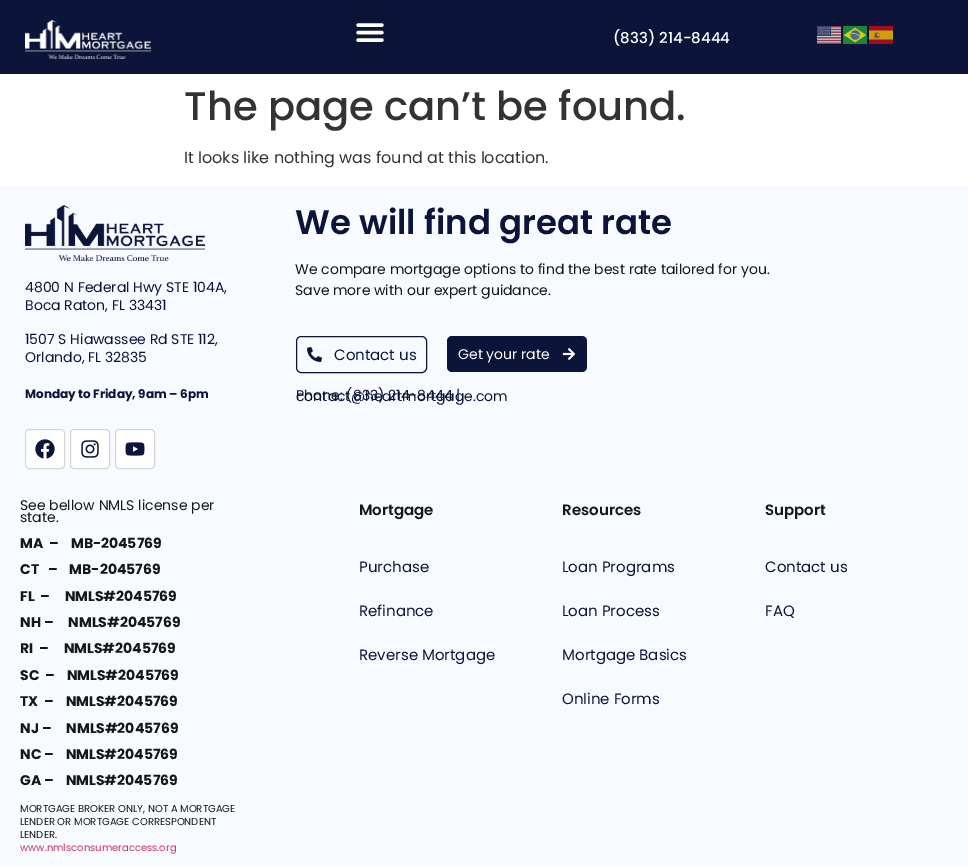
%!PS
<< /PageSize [968 867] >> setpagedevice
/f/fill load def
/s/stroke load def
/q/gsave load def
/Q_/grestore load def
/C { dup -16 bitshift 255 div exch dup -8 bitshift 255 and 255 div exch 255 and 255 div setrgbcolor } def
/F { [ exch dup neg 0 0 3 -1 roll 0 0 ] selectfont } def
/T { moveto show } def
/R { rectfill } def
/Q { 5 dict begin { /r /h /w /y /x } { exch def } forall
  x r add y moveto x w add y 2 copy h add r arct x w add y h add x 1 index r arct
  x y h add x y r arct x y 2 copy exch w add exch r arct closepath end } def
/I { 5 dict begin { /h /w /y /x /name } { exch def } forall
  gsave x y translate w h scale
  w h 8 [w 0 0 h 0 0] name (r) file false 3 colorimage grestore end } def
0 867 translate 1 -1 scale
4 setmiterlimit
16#FFFFFF C
0 0 968 867 R
16#0C143A C
0 0 968 74 R
(1.rgb) 25 20 126 39 I
16#0B1337 C
347 10 45 45 3 Q f
(2.rgb) 356 23 28 19 I
/Poppins-Medium 15 F
16#FFFFFF C
(\(833\) 214-8444) 613 43 T
(3.rgb) 817 26 24 18 I
(4.rgb) 843 26 24 18 I
(5.rgb) 869 26 24 18 I
/Poppins-Medium 40 F
16#333333 C
(The page can’t be found.) 184 120 T
/Poppins-Regular 16 F
(It looks like nothing was found at this location.) 184 163 T
16#F7FAFF C
0 185 968 682 R
(6.rgb) 25 205 180 56 I
/Poppins-Regular 14 F
16#0C143A C
(4800 N Federal Hwy STE 104A,) 25 292 T
(Boca Raton, FL 33431) 25 310 T
(1507 S Hiawassee Rd STE 112,) 25 344 T
(Orlando, FL 32835) 25 362 T
/Poppins-Bold 12 F
(Monday to Friday, 9am – 6pm) 25 398 T
16#FFFFFF C
25.5 429.5 39 39 3.5 Q q f Q_
16#D6D6D6 C
s
(7.rgb) 35 439 20 20 I
16#FFFFFF C
70.5 429.5 39 39 3.5 Q q f Q_
16#D6D6D6 C
s
(8.rgb) 81 440 18 18 I
16#FFFFFF C
115.5 429.5 39 39 3.5 Q q f Q_
16#D6D6D6 C
s
(9.rgb) 125 442 20 14 I
/Poppins-SemiBold 34 F
16#0C143A C
(We will find great rate) 295 234 T
/Poppins-Regular 14 F
16#161616 C
(We compare mortgage options to find the best rate tailored for you.) 295 274 T
(Save more with our expert guidance.) 295 295 T
16#0C143A C
296.5 336.5 130 36 4.5 Q s
(10.rgb) 307 347 15 15 I
/Poppins-Regular 15 F
(Contact us) 334 360 T
447 336 140 36 5 Q f
/Poppins-Regular 14 F
16#FFFFFF C
(Get your rate) 458 359 T
(11.rgb) 562 348 13 12 I
16#0C143A C
(Phone: \(833\) 214-8444 |) 296 400 T
(contact@heartmortgage.com) 296 401 T
16#161616 C
(See bellow NMLS license per) 20 510 T
(state.) 20 522 T
/Poppins-Bold 14 F
(MA  –    MB-2045769) 20 548 T
(CT   –    MB-2045769) 20 574 T
(FL  –     NMLS#2045769) 20 601 T
(NH –     NMLS#2045769) 20 627 T
(RI  –     NMLS#2045769) 20 653 T
(SC  –    NMLS#2045769) 20 680 T
(TX  –    NMLS#2045769) 20 706 T
(NJ –     NMLS#2045769) 20 733 T
(NC –    NMLS#2045769) 20 759 T
(GA –    NMLS#2045769) 20 785 T
/Poppins-Regular 10 F
(MORTGAGE BROKER ONLY, NOT A MORTGAGE) 20 812 T
(LENDER OR MORTGAGE CORRESPONDENT) 20 825 T
(LENDER.) 20 838 T
16#CC3366 C
(www.nmlsconsumeraccess.org) 20 851 T
/Poppins-SemiBold 15 F
16#161616 C
(Mortgage) 359 515 T
/Poppins-Regular 15 F
16#0C143A C
(Purchase) 359 572 T
(Refinance) 359 616 T
(Reverse Mortgage) 359 660 T
/Poppins-SemiBold 15 F
16#161616 C
(Resources) 562 515 T
/Poppins-Regular 15 F
16#0C143A C
(Loan Programs) 562 572 T
(Loan Process) 562 616 T
(Mortgage Basics) 562 660 T
(Online Forms) 562 704 T
/Poppins-SemiBold 15 F
16#161616 C
(Support) 765 515 T
/Poppins-Regular 15 F
16#0C143A C
(Contact us) 765 572 T
(FAQ) 765 616 T
showpage
